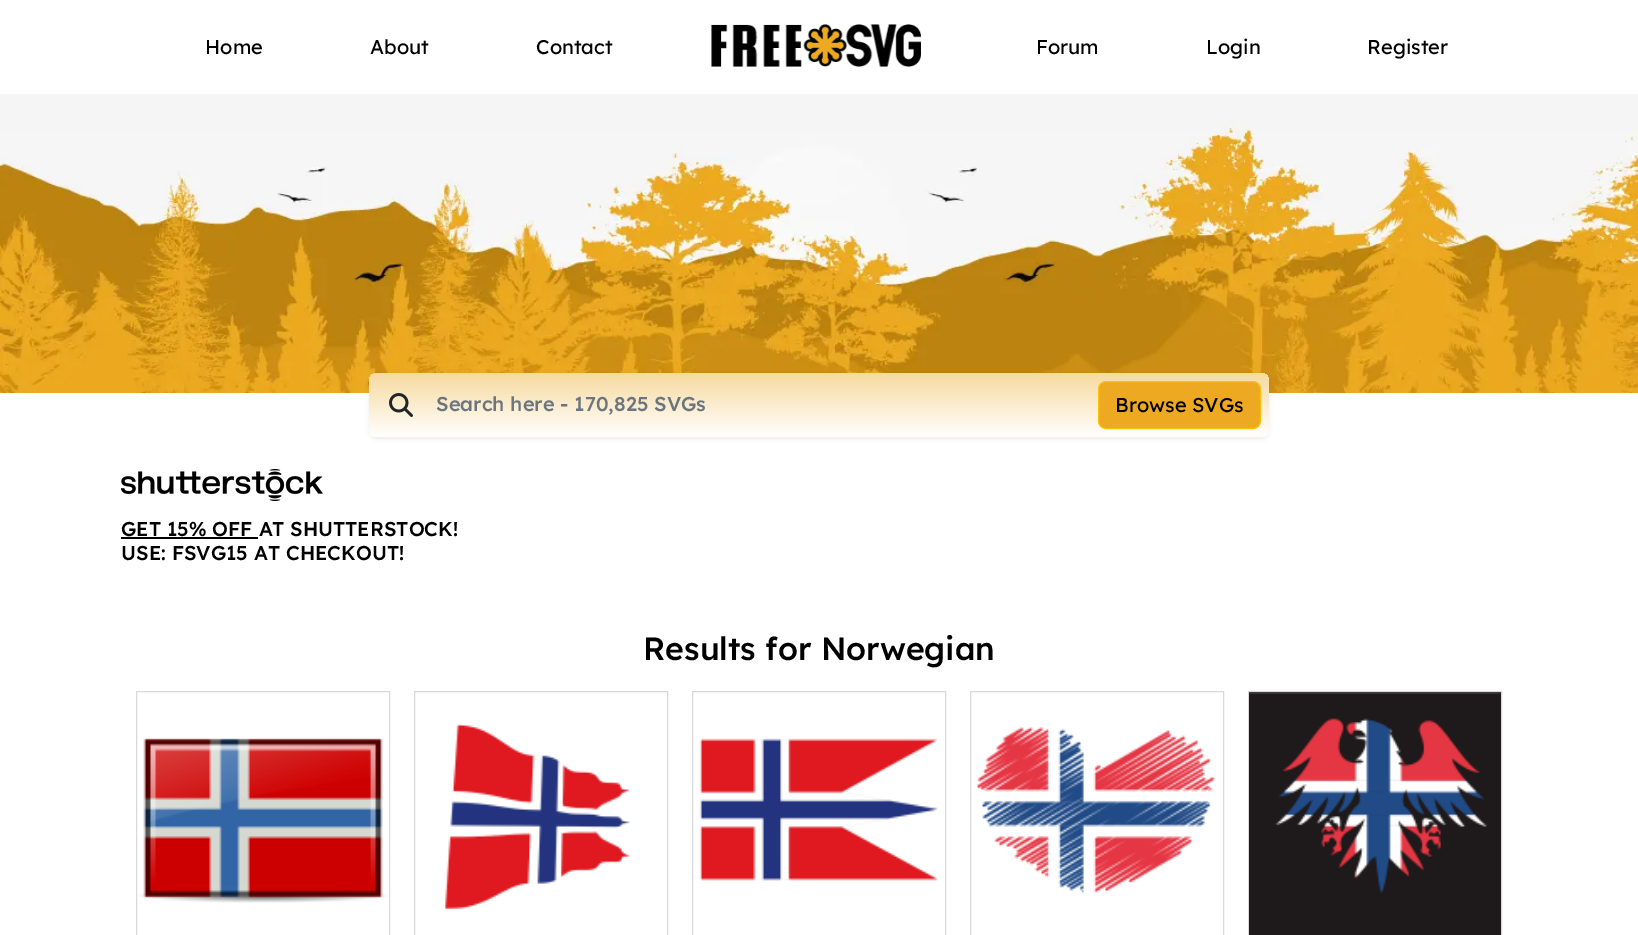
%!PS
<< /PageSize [1638 935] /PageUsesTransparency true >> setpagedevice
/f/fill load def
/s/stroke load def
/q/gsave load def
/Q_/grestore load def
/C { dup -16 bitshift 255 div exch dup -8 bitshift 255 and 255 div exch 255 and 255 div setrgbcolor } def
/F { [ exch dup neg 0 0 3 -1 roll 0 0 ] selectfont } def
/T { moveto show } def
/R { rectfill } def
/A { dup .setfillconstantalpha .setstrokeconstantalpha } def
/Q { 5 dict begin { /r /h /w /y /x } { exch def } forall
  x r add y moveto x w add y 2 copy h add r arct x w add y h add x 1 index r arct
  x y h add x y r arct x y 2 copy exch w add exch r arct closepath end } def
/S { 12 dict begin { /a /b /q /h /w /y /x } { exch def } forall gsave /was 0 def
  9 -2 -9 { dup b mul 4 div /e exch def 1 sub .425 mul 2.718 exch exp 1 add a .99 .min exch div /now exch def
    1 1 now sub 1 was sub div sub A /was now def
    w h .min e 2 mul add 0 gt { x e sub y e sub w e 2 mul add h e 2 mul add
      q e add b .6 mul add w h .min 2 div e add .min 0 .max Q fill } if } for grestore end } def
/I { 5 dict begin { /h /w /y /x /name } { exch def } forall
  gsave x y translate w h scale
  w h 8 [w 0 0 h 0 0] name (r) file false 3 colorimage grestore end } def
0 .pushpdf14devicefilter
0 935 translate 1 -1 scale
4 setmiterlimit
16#FFFFFF C
0 0 1638 935 R
/Lexend-Regular 20 F
16#000000 C
(Home) 205 54 T
(About) 370 54 T
(Contact) 536 54 T
(1.rgb) 711 24 210 43 I
(Forum) 1036 54 T
(Login) 1206 54 T
(Register) 1367 54 T
(2.rgb) 0 94 1638 299 I
369 375 900 64 8 2 .07 S
q 369 373 900 64 8 Q clip newpath
<< /ShadingType 2 /ColorSpace /DeviceRGB /Coords [819 437 819 290] /Extend [true true] /Function << /FunctionType 2 /Domain [0 1] /C0 [1 1 1] /C1 [.929 .663 .133] /N 1 >> >> shfill Q_
(3.rgb) 389 393 24 24 I
/Lexend-Medium 20 F
16#6C757D C
(Search here - 170,825 SVGs) 436 411 T
16#EDA922 C
1098.5 381.5 162 47 7.5 Q q f Q_
16#FFC107 C
s
/Lexend-Regular 20 F
16#000000 C
(Browse SVGs) 1115 412 T
(4.rgb) 121 469 202 32 I
/Lexend-Medium 20 F
(GET 15% OFF AT SHUTTERSTOCK!) 121 536 T
121 537 137 2 R
(USE: FSVG15 AT CHECKOUT!) 121 560 T
/Lexend-Medium 32 F
(Results for Norwegian) 643 660 T
16#D9D9D9 C
136.5 691.5 253 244 rectstroke
(5.rgb) 138 738 250 165 I
414.5 691.5 253 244 rectstroke
(6.rgb) 445 723 186 187 I
692.5 691.5 253 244 rectstroke
(7.rgb) 699 738 240 143 I
970.5 691.5 253 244 rectstroke
(8.rgb) 977 727 238 167 I
1248.5 691.5 253 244 rectstroke
(9.rgb) 1249 692 252 243 I
.poppdf14devicefilter showpage
